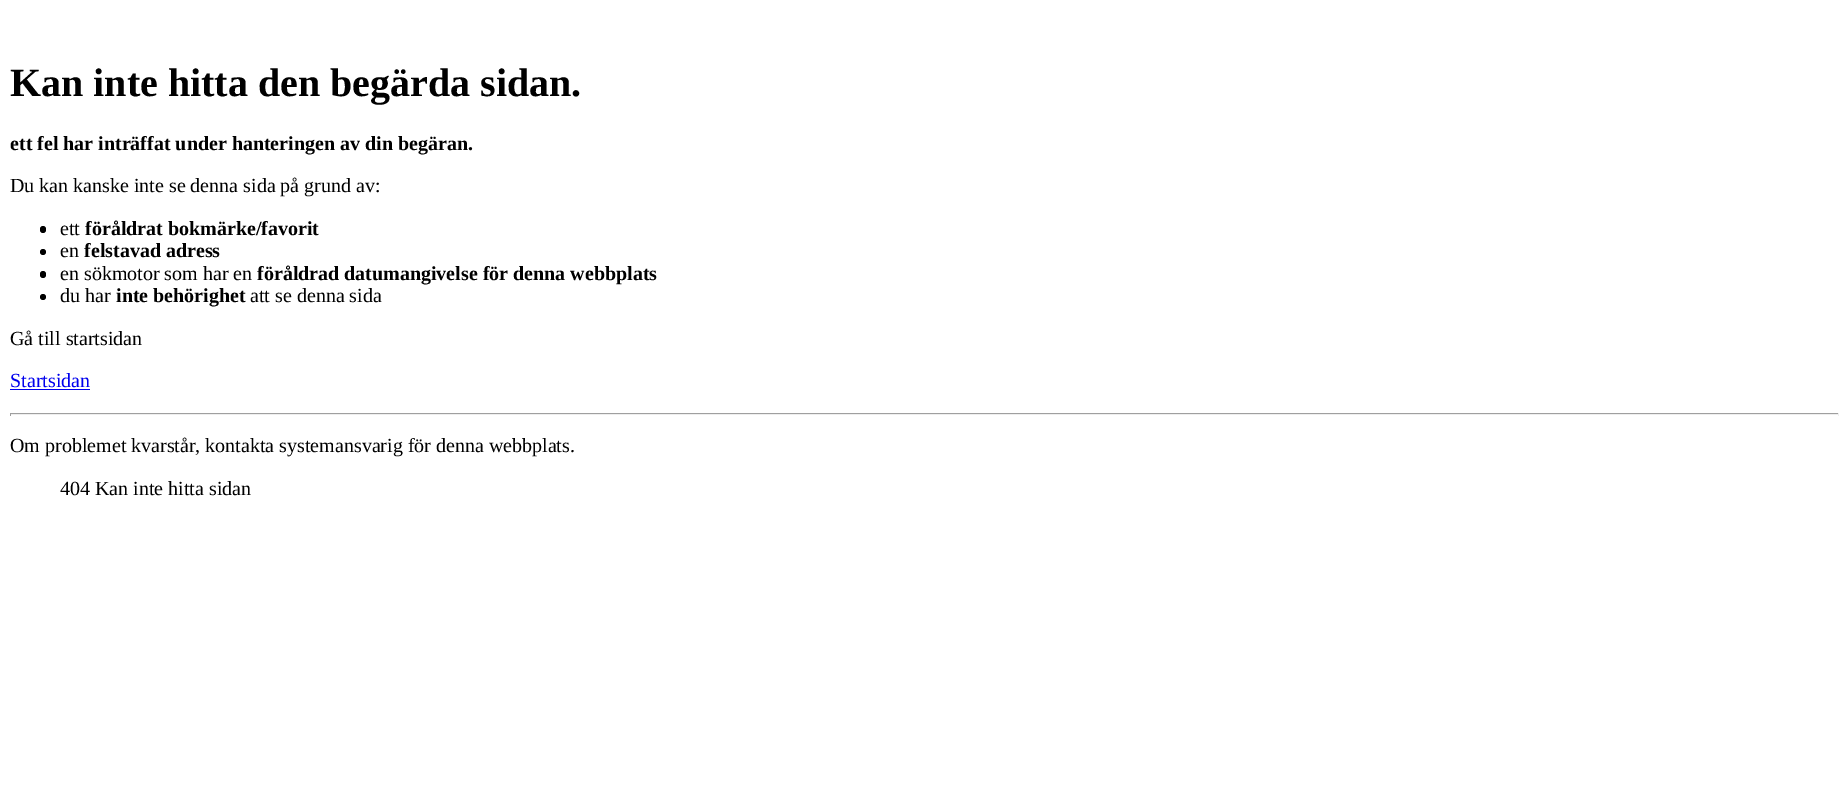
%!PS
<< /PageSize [1848 809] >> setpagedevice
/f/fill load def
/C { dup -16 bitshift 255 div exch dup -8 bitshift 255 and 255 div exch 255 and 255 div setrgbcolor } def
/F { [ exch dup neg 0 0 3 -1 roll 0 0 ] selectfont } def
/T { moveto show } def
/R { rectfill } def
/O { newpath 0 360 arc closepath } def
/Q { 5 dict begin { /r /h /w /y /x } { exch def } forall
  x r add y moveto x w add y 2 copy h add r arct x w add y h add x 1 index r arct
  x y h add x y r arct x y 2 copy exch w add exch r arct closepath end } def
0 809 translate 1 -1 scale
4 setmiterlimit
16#FFFFFF C
0 0 1848 809 R
/LiberationSerif-Bold 40 F
16#000000 C
(Kan inte hitta den begärda sidan.) 10 96 T
/LiberationSerif-Bold 20 F
(ett fel har inträffat under hanteringen av din begäran.) 10 150 T
/LiberationSerif-Regular 20 F
(Du kan kanske inte se denna sida på grund av:) 10 192 T
40 226 6 7 3 Q f
(ett) 60 235 T
/LiberationSerif-Bold 20 F
(föråldrat bokmärke/favorit) 85 235 T
43 252 3 O f
/LiberationSerif-Regular 20 F
(en) 60 257 T
/LiberationSerif-Bold 20 F
(felstavad adress) 84 257 T
40 271 6 7 3 Q f
/LiberationSerif-Regular 20 F
(en sökmotor som har en) 60 280 T
/LiberationSerif-Bold 20 F
(föråldrad datumangivelse för denna webbplats) 257 280 T
43 297 3 O f
/LiberationSerif-Regular 20 F
(du har) 60 302 T
/LiberationSerif-Bold 20 F
(inte behörighet) 116 302 T
/LiberationSerif-Regular 20 F
(att se denna sida) 250 302 T
(Gå till startsidan) 10 345 T
16#0000EE C
(Startsidan) 10 387 T
10 389 80 1 R
16#9F9F9F C
10 413 1829 1 R
16#EEEEEE C
1838 413 1 3 R
10 414 1829 1 R
16#9F9F9F C
10 413 1 3 R
16#000000 C
(Om problemet kvarstår, kontakta systemansvarig för denna webbplats.) 10 452 T
(404 Kan inte hitta sidan) 60 495 T
showpage
